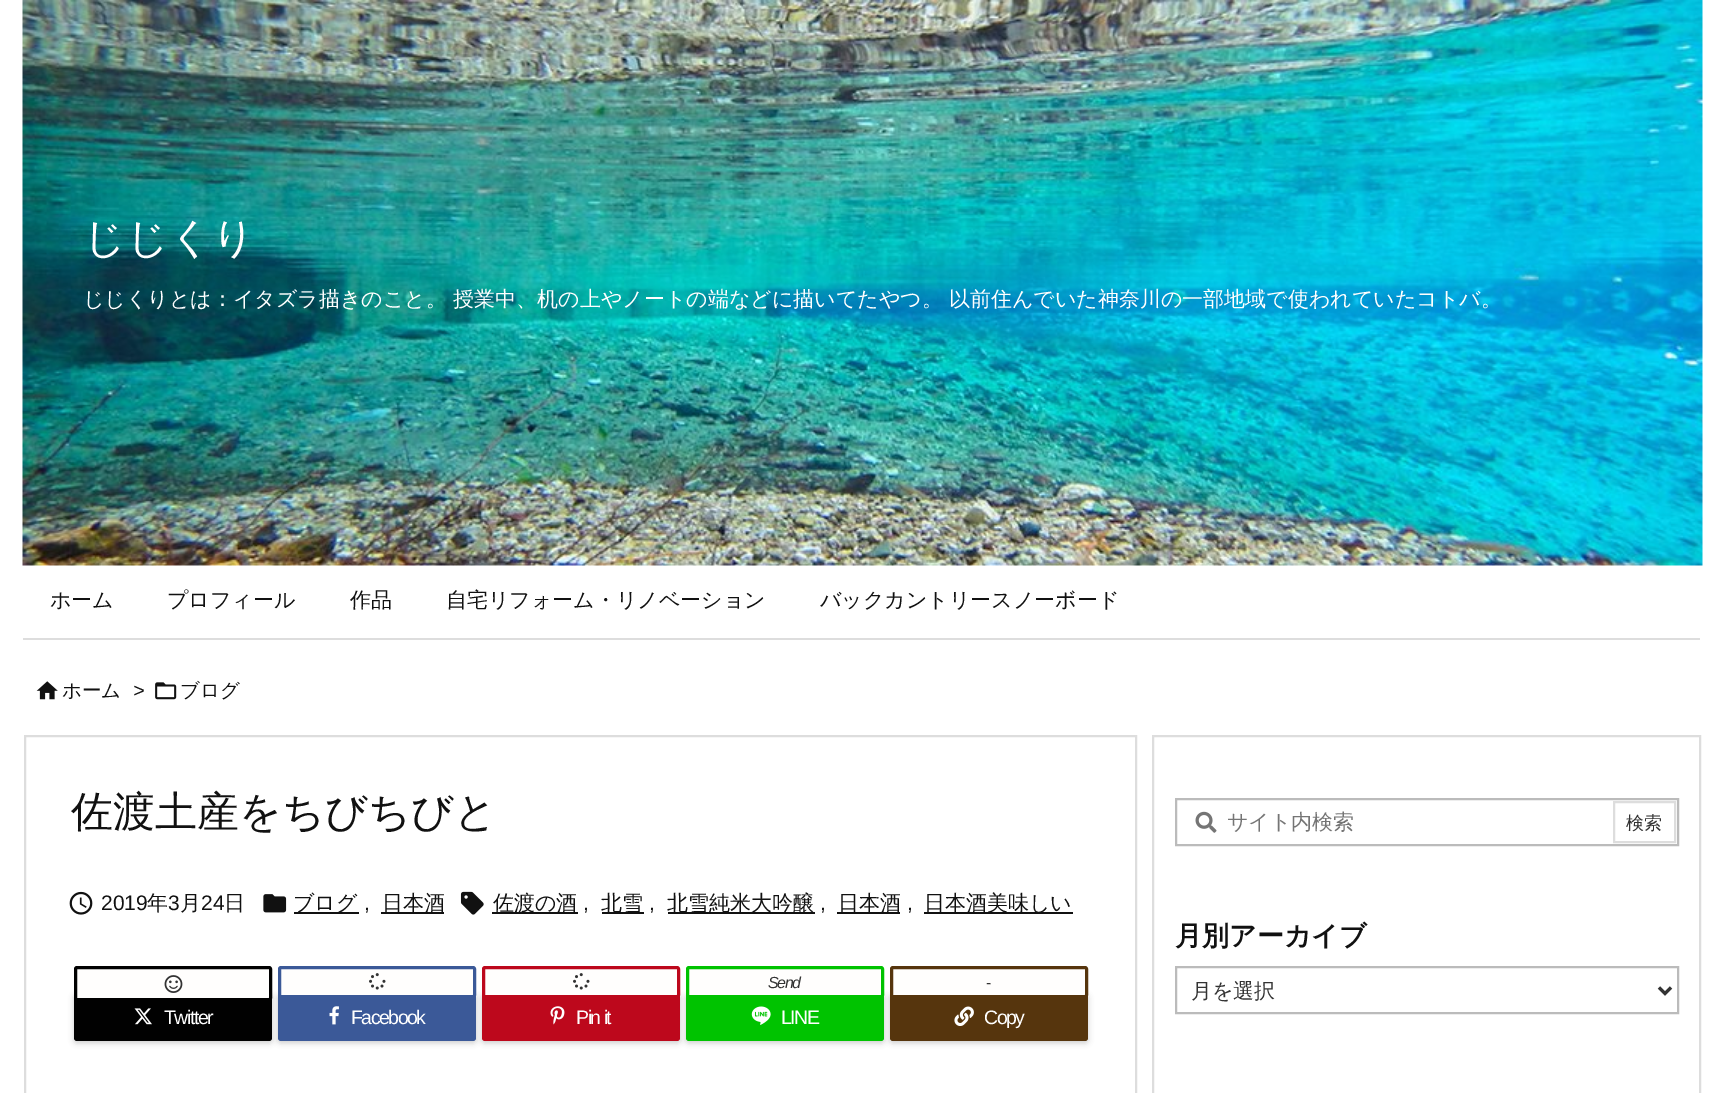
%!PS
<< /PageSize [1725 1093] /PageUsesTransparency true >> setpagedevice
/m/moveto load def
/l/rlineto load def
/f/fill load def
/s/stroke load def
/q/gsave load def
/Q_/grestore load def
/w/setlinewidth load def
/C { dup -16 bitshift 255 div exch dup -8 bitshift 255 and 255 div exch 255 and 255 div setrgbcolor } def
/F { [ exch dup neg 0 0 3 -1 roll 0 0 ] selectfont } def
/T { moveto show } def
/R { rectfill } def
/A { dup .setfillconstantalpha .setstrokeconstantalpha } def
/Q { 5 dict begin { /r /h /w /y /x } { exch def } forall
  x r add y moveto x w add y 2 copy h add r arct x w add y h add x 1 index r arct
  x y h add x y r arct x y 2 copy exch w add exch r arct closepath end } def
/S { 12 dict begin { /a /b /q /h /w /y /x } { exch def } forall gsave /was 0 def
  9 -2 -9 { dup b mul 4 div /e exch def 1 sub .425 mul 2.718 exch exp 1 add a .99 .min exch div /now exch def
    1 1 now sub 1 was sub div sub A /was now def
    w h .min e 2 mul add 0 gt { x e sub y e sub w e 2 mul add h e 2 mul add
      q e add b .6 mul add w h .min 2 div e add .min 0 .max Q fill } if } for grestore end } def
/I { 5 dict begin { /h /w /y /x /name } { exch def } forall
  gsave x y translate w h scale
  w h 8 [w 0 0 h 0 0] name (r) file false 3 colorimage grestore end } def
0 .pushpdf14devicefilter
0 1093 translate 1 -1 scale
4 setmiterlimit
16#FFFFFF C
0 0 1725 1093 R
(1.rgb) 22 0 1681 566 I
/WenQuanYiZenHei-Medium 42 F
(じじくり) 83 252 T
/WenQuanYiZenHei-Medium 21 F
(じじくりとは：イタズラ描きのこと。 授業中、机の上やノートの端などに描いてたやつ。 以前住んでいた神奈川の一部地域で使われていたコトバ。) 83 306 T
16#DDDDDD C
23 638 1677 2 R
16#111111 C
(ホーム) 50 607 T
(プロフィール) 167 607 T
(作品) 350 607 T
(自宅リフォーム・リノベーション) 446 607 T
(バックカントリースノーボード) 820 607 T
(2.rgb) 36 681 22 19 I
/WenQuanYiZenHei-Medium 19.5 F
(ホーム) 62 697 T
/LiberationSans-Italic 19.5 F
(>) 133 697 T
(3.rgb) 155 682 22 18 I
/WenQuanYiZenHei-Medium 19.5 F
(ブログ) 180 697 T
16#DDDDDD C
2 w
25 736 1111 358 rectstroke
/WenQuanYiZenHei-Medium 42 F
16#111111 C
(佐渡土産をちびちびと) 71 826 T
(4.rgb) 69 891 24 24 I
/LiberationSans-Regular 21 F
(2019) 101 910 T
/WenQuanYiZenHei-Medium 21 F
(年) 147 910 T
/LiberationSans-Regular 21 F
(3) 168 910 T
/WenQuanYiZenHei-Medium 21 F
(月) 180 910 T
/LiberationSans-Regular 21 F
(24) 201 910 T
/WenQuanYiZenHei-Medium 21 F
(日) 224 910 T
(5.rgb) 263 894 24 19 I
294 912 65 2 R
(ブログ) 293 910 T
/LiberationSans-Regular 21 F
(,) 364 910 T
381 912 63 2 R
/WenQuanYiZenHei-Medium 21 F
(日本酒) 382 910 T
(6.rgb) 460 891 24 24 I
492 912 86 2 R
(佐渡の酒) 493 910 T
/LiberationSans-Regular 21 F
(,) 583 910 T
602 912 42 2 R
/WenQuanYiZenHei-Medium 21 F
(北雪) 601 910 T
/LiberationSans-Regular 21 F
(,) 649 910 T
668 912 147 2 R
/WenQuanYiZenHei-Medium 21 F
(北雪純米大吟醸) 667 910 T
/LiberationSans-Regular 21 F
(,) 820 910 T
837 912 63 2 R
/WenQuanYiZenHei-Medium 21 F
(日本酒) 838 910 T
/LiberationSans-Regular 21 F
(,) 907 910 T
924 912 149 2 R
/WenQuanYiZenHei-Medium 21 F
(日本酒美味しい) 924 910 T
16#000000 C
74 995 198 48 3 3 .2 S
16#010101 C
74 993 198 48 3 Q f
16#FFFEFD C
75.5 967.5 195 32 1.5 Q q f Q_
16#010101 C
3 w
s
(7.rgb) 164 975 19 18 I
(8.rgb) 134 1008 18 17 I
/LiberationSans-Regular 19.5 F
16#FFFFFF C
164 1024 m -1.5 0 (Twitter) ashow
16#000000 C
278 995 198 48 3 3 .2 S
16#3B5998 C
278 993 198 48 3 Q f
16#FFFEFD C
279.5 967.5 195 29 1.5 Q q f Q_
16#3B5998 C
s
(9.rgb) 369 973 17 17 I
(10.rgb) 329 1006 10 19 I
16#FFFFFF C
351 1024 m -1.5 0 (Facebook) ashow
16#000000 C
482 995 198 48 3 3 .2 S
16#BD081C C
482 993 198 48 3 Q f
16#FFFEFD C
483.5 967.5 195 29 1.5 Q q f Q_
16#BD081C C
s
(9.rgb) 573 973 17 17 I
(11.rgb) 550 1006 15 19 I
16#FFFFFF C
576 1024 m -1.5 0 (Pin it) ashow
16#000000 C
686 995 198 48 3 3 .2 S
16#00C300 C
686 993 198 48 3 Q f
16#FFFEFD C
687.5 967.5 195 29 1.5 Q q f Q_
16#00C300 C
s
/LiberationSans-Italic 16 F
16#333333 C
768 988 m -1.5 0 (Send) ashow
(12.rgb) 751 1006 20 19 I
/LiberationSans-Regular 19.5 F
16#FFFFFF C
781 1024 m -1.5 0 (LINE) ashow
16#000000 C
890 995 198 48 3 3 .2 S
16#56350D C
890 993 198 48 3 Q f
16#FFFEFD C
891.5 967.5 195 29 1.5 Q q f Q_
16#56350D C
s
/LiberationSans-Regular 16 F
16#333333 C
986 988 m -1.5 0 (-) ashow
(13.rgb) 954 1006 20 20 I
/LiberationSans-Regular 19.5 F
16#FFFFFF C
984 1024 m -1.5 0 (Copy) ashow
16#DDDDDD C
2 w
1153 736 547 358 rectstroke
16#BBBBBB C
1176 799 502 46 rectstroke
(14.rgb) 1195 811 22 22 I
/WenQuanYiZenHei-Medium 21 F
16#757575 C
(サイト内検索) 1227 829 T
16#DDDDDD C
1614 802 61 40 rectstroke
/WenQuanYiZenHei-Medium 18 F
16#333333 C
(検索) 1626 829 T
/WenQuanYiZenHei-Bold 27 F
16#111111 C
(月別アーカイブ) 1175 945 T
16#BBBBBB C
1176 967 502 46 rectstroke
16#333333 C
3 w
1659 987.5 m 6 6 l 6 -6 l s
/WenQuanYiZenHei-Medium 21 F
(月を選択) 1191 998 T
.poppdf14devicefilter showpage
